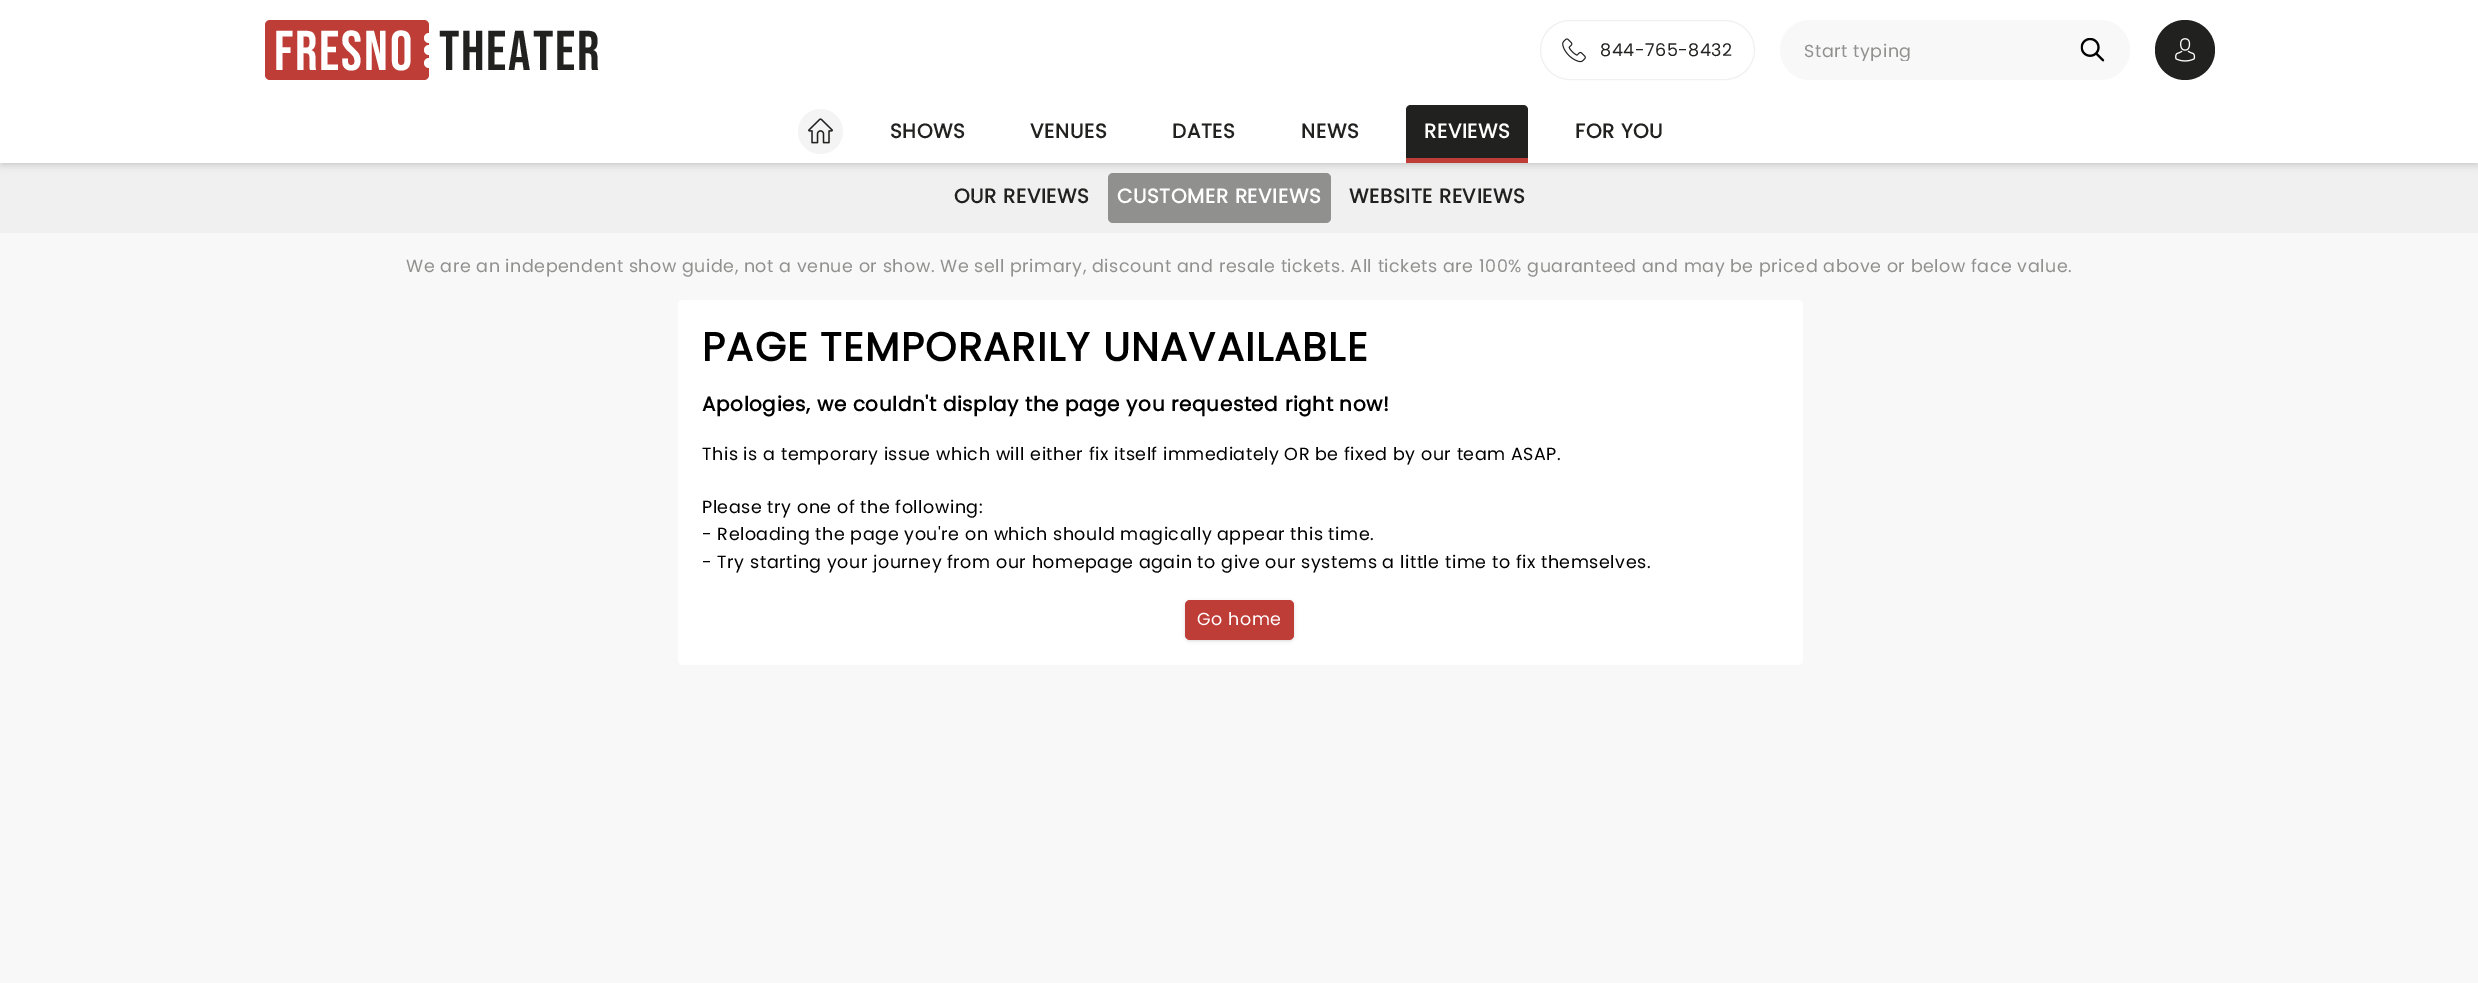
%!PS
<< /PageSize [2478 983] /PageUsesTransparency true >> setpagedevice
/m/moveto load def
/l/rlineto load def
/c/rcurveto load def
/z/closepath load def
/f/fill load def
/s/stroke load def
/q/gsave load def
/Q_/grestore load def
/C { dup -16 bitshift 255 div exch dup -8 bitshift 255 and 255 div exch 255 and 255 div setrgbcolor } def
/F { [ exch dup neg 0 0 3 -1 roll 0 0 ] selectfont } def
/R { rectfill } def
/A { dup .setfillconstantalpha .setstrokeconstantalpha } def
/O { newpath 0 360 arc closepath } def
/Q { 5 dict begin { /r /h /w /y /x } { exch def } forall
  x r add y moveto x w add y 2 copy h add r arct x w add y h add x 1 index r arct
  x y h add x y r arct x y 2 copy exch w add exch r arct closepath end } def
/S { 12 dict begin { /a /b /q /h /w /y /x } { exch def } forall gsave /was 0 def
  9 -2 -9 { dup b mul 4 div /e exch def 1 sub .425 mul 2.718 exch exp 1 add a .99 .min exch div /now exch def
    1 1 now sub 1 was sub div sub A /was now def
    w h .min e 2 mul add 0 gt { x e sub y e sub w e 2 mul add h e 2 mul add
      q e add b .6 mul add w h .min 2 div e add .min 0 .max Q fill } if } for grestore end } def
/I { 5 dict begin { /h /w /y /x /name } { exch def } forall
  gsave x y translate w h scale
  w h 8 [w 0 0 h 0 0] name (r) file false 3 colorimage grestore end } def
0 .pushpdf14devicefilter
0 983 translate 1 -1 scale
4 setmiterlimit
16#F8F8F8 C
0 0 2478 983 R
16#F0F0F0 C
0 163 2478 70 R
16#000000 C
3 85 2473 78 0 2.5 .1 S
16#90908F C
1108 173 223 50 5 Q f
16#000000 C
1 86 2477 80 0 4 .1 S
16#FFFFFF C
0 0 2478 163 R
16#BF3D37 C
265 20 164 60 5 Q f
/BebasNeue-Regular 56 F
16#FFFFFF C
274 70 m 1.75 0 (Fresno) ashow
429 38 5 O f
429 50 5 O f
429 63 5 O f
16#212120 C
439 70 m 1.75 0 (Theater) ashow
16#F0F0F0 C
1540.5 20.5 214 59 29.5 Q s
(1.rgb) 1562 38 24 25 I
/Poppins-Regular 17.5 F
16#212120 C
1600 56 m .53 0 (844-765-8432) ashow
16#F8F8F8 C
1780 20 350 60 30 Q f
q
1805 39 260 22 rectclip
16#90908F C
1804 57 m .53 0 (Start typing) ashow
Q_
(2.rgb) 2080 38 25 24 I
16#212120 C
2185 50 30 O f
(3.rgb) 2175 38 21 24 I
16#F4F4F4 C
820.5 131.5 22.5 O f
(4.rgb) 808 118 25 26 I
/Poppins-Bold 20 F
16#212120 C
890 138 m .6 0 (SHOWS) ashow
1030 138 m .6 0 (VENUES) ashow
1172 138 m .6 0 (DATES) ashow
1301 138 m .6 0 (NEWS) ashow
1411 105 m 112 0 l 3 0 5 2 5 5 c 0 48 l -122 0 l 0 -48 l 0 -3 2 -5 5 -5 c z f
16#BF3D37 C
1406 158 122 5 R
16#FFFFFF C
1424 138 m .6 0 (REVIEWS) ashow
16#212120 C
1575 138 m .6 0 (FOR YOU) ashow
954 203 m .6 0 (OUR REVIEWS) ashow
16#FFFFFF C
1117 203 m .6 0 (CUSTOMER REVIEWS) ashow
16#212120 C
1349 203 m .6 0 (WEBSITE REVIEWS) ashow
/Poppins-Regular 17.5 F
16#90908F C
406 272 m .53 0 (We are an independent show guide, not a venue or show. We sell primary, discount and resale tickets. All tickets are 100% guaranteed and may be priced above or below face value.) ashow
16#FFFFFF C
678 300 1125 365 5 Q f
/Poppins-Bold 40 F
16#000000 C
702 361 m 1.2 0 (PAGE TEMPORARILY UNAVAILABLE) ashow
/Poppins-Bold 20 F
702 411 m .6 0 (Apologies, we couldn't display the page you requested right now!) ashow
/Poppins-Regular 17.5 F
702 460 m .53 0 (This is a temporary issue which will either fix itself immediately OR be fixed by our team ASAP.) ashow
702 513 m .53 0 (Please try one of the following:) ashow
702 540 m .53 0 (- Reloading the page you're on which should magically appear this time.) ashow
702 568 m .53 0 (- Try starting your journey from our homepage again to give our systems a little time to fix themselves.) ashow
1186 603 107 37 4 1 .1 S
1185 601 109 40 5 2 .1 S
16#BF3D37 C
1185 600 109 40 5 Q f
16#FFFFFF C
1197 625 m .53 0 (Go home) ashow
.poppdf14devicefilter showpage
